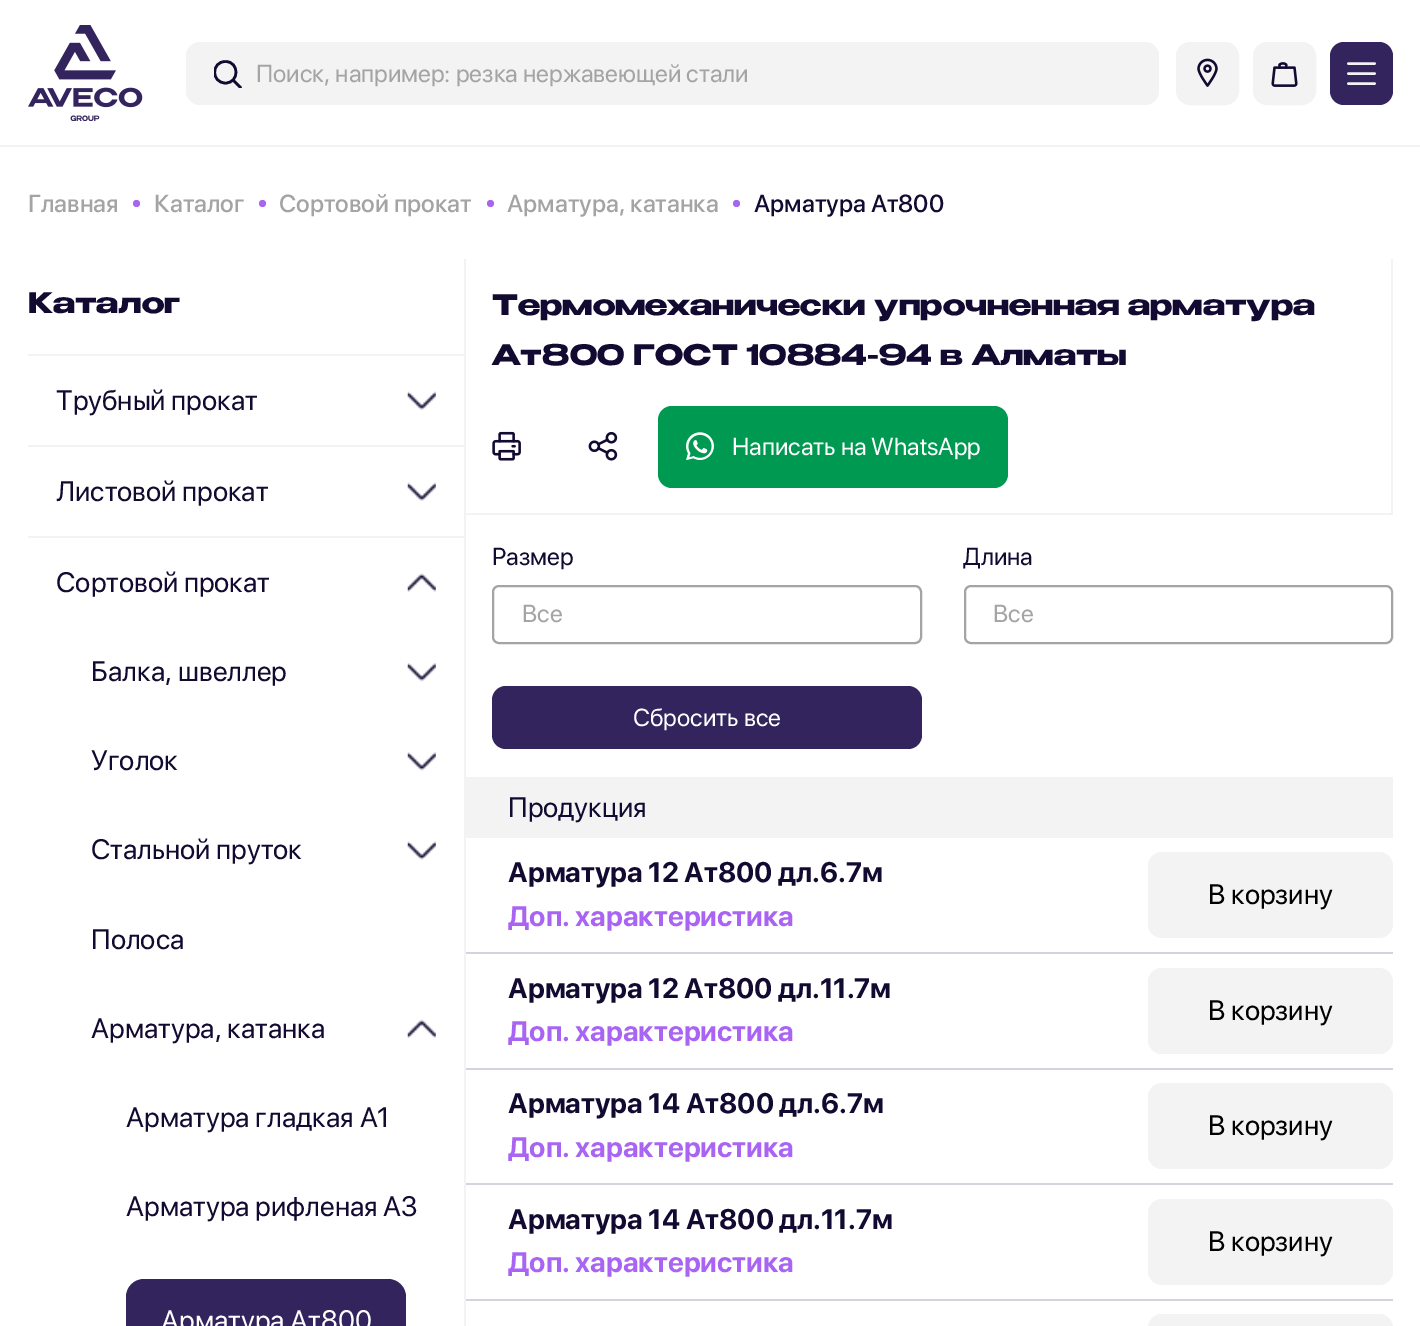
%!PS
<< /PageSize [1420 1326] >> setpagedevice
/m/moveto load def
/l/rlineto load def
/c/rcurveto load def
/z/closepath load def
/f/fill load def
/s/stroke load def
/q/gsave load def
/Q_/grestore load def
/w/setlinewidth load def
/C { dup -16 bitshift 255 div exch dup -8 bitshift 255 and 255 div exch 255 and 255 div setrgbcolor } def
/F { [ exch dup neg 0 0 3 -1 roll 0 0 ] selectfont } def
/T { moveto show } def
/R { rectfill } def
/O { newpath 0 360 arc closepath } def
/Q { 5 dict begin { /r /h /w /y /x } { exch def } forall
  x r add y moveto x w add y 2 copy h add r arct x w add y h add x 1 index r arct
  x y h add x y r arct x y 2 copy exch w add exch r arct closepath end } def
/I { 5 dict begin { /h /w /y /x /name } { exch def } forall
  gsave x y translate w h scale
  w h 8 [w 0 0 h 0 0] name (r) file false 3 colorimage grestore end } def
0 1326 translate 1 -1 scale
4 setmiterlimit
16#FFFFFF C
0 0 1420 1326 R
16#F3F3F3 C
0 145 1420 2 R
(1.rgb) 28 25 115 96 I
186 42 973 63 14 Q f
q
214 60 28 28 rectclip
16#130A31 C
2.6 w
1 setlinecap
1 setlinejoin
225.5 83 m 14 0 14 -21.5 0 -21.5 c -14.5 0 -14.5 21.5 0 21.5 c z 240.5 87.5 m -7.5 -7.5 l s
Q_
/SFProDisplay-Regular 24.5 F
16#A4A4A4 C
(Поиск, например: резка нержавеющей стали) 256 82 T
16#F3F3F3 C
1177 43 61 61 13 Q q f Q_
2 w
s
(2.rgb) 1197 58 21 29 I
1254 43 61 61 13 Q q f Q_
s
(3.rgb) 1271 62 27 25 I
16#33245E C
1330 42 63 63 14 Q f
16#F3F3F3 C
2.6 w
1 setlinecap
1374.5 63.5 m -26 0 l 1374.5 73.5 m -26 0 l 1374.5 83.5 m -26 0 l s
/SFProDisplay-Medium 24.5 F
16#A4A4A4 C
(Главная) 28 212 T
16#A964F4 C
136.5 203.5 3.5 O f
16#A4A4A4 C
(Каталог) 154 212 T
16#A964F4 C
262.5 203.5 3.5 O f
16#A4A4A4 C
(Сортовой прокат) 279 212 T
16#A964F4 C
490.5 203.5 3.5 O f
16#A4A4A4 C
(Арматура, катанка) 507 212 T
16#A964F4 C
736.5 203.5 3.5 O f
16#130A31 C
(Арматура Ат800) 754 212 T
16#F3F3F3 C
464 259 2 96 R
28 354 438 2 R
/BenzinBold-Bold 28 F
16#130A31 C
(Каталог) 28 313 T
16#F3F3F3 C
464 355 2 971 R
28 445 436 2 R
/SFProDisplay-Regular 28 F
16#130A31 C
(Трубный прокат) 56 410 T
(4.rgb) 407 391 29 19 I
16#F3F3F3 C
28 536 436 2 R
16#130A31 C
(Листовой прокат) 56 501 T
(4.rgb) 407 482 29 19 I
(Сортовой прокат) 56 592 T
(5.rgb) 407 573 29 19 I
(Балка, швеллер) 91 681 T
(6.rgb) 407 663 29 19 I
(Уголок) 91 770 T
(7.rgb) 407 752 29 19 I
(Стальной пруток) 91 859 T
(8.rgb) 407 841 29 19 I
(Полоса) 91 949 T
(Арматура, катанка) 91 1038 T
(9.rgb) 407 1019 29 19 I
(Арматура гладкая А1) 126 1127 T
(Арматура рифленая А3) 126 1216 T
16#33245E C
126 1279 280 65 18 Q f
16#FFFFFF C
(Арматура Ат800) 161 1330 T
16#F3F3F3 C
1391 259 2 256 R
466 513 927 2 R
/BenzinBold-Bold 28 F
16#130A31 C
(Термомеханически упрочненная арматура) 492 315 T
(Ат800 ГОСТ 10884-94 в Алматы) 492 365 T
(10.rgb) 492 431 29 30 I
(11.rgb) 588 431 30 30 I
16#009951 C
658 406 350 82 14 Q f
(12.rgb) 686 432 28 28 I
/SFProDisplay-Regular 24.5 F
16#FFFFFF C
(Написать на WhatsApp) 732 455 T
16#130A31 C
(Размер) 492 565 T
16#A4A4A4 C
2 w
0 setlinecap
493 586 428 57 6 Q s
(Все) 522 622 T
16#130A31 C
(Длина) 963 565 T
16#A4A4A4 C
965 586 427 57 6 Q s
(Все) 993 622 T
16#33245E C
492 686 430 63 14 Q f
16#FFFFFF C
(Сбросить все) 633 726 T
16#F3F3F3 C
466 777 927 61 R
/SFProDisplay-Regular 28 F
16#130A31 C
(Продукция) 508 817 T
16#D6D3DF C
466 952 927 2 R
/SFProDisplay-Bold 28 F
16#130A31 C
(Арматура 12 Ат800 дл.6.7м) 508 882 T
16#A964F4 C
(Доп. характеристика) 508 926 T
16#F3F3F3 C
1148 852 245 86 14 Q f
/SFProDisplay-Regular 28 F
16#000000 C
(В корзину) 1208 904 T
16#D6D3DF C
466 1068 927 2 R
/SFProDisplay-Bold 28 F
16#130A31 C
(Арматура 12 Ат800 дл.11.7м) 508 998 T
16#A964F4 C
(Доп. характеристика) 508 1041 T
16#F3F3F3 C
1148 968 245 86 14 Q f
/SFProDisplay-Regular 28 F
16#000000 C
(В корзину) 1208 1020 T
16#D6D3DF C
466 1183 927 2 R
/SFProDisplay-Bold 28 F
16#130A31 C
(Арматура 14 Ат800 дл.6.7м) 508 1113 T
16#A964F4 C
(Доп. характеристика) 508 1157 T
16#F3F3F3 C
1148 1083 245 86 14 Q f
/SFProDisplay-Regular 28 F
16#000000 C
(В корзину) 1208 1135 T
16#D6D3DF C
466 1299 927 2 R
/SFProDisplay-Bold 28 F
16#130A31 C
(Арматура 14 Ат800 дл.11.7м) 508 1229 T
16#A964F4 C
(Доп. характеристика) 508 1272 T
16#F3F3F3 C
1148 1199 245 86 14 Q f
/SFProDisplay-Regular 28 F
16#000000 C
(В корзину) 1208 1251 T
16#F3F3F3 C
1148 1314 245 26 14 Q f
showpage
